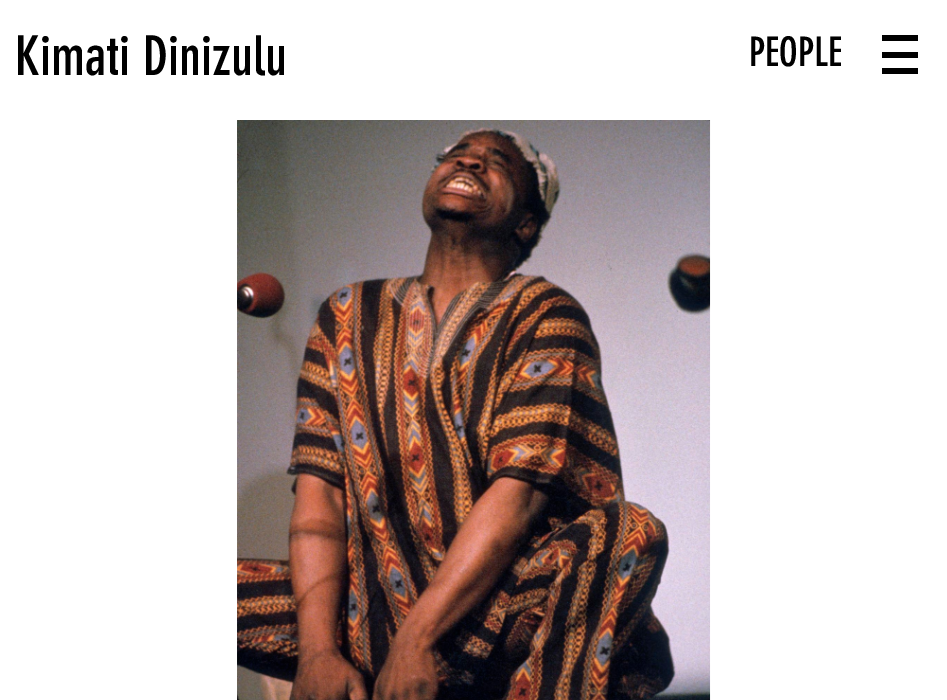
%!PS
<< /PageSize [947 700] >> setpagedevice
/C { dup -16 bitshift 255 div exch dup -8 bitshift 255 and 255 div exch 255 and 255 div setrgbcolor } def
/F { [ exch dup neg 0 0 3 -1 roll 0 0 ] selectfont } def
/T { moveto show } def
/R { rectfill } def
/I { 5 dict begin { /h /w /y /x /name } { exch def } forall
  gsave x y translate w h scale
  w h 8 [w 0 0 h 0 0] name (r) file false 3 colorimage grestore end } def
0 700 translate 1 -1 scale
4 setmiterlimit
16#FFFFFF C
0 0 947 700 R
/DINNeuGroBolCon-Thin 54 F
16#000000 C
(Kimati Dinizulu) 15 75 T
/DINNeuGroBolCon-Thin 40 F
(PEOPLE) 749 66 T
882 35 36 6 R
882 52 36 6 R
882 68 36 6 R
(1.rgb) 237 120 474 580 I
showpage
